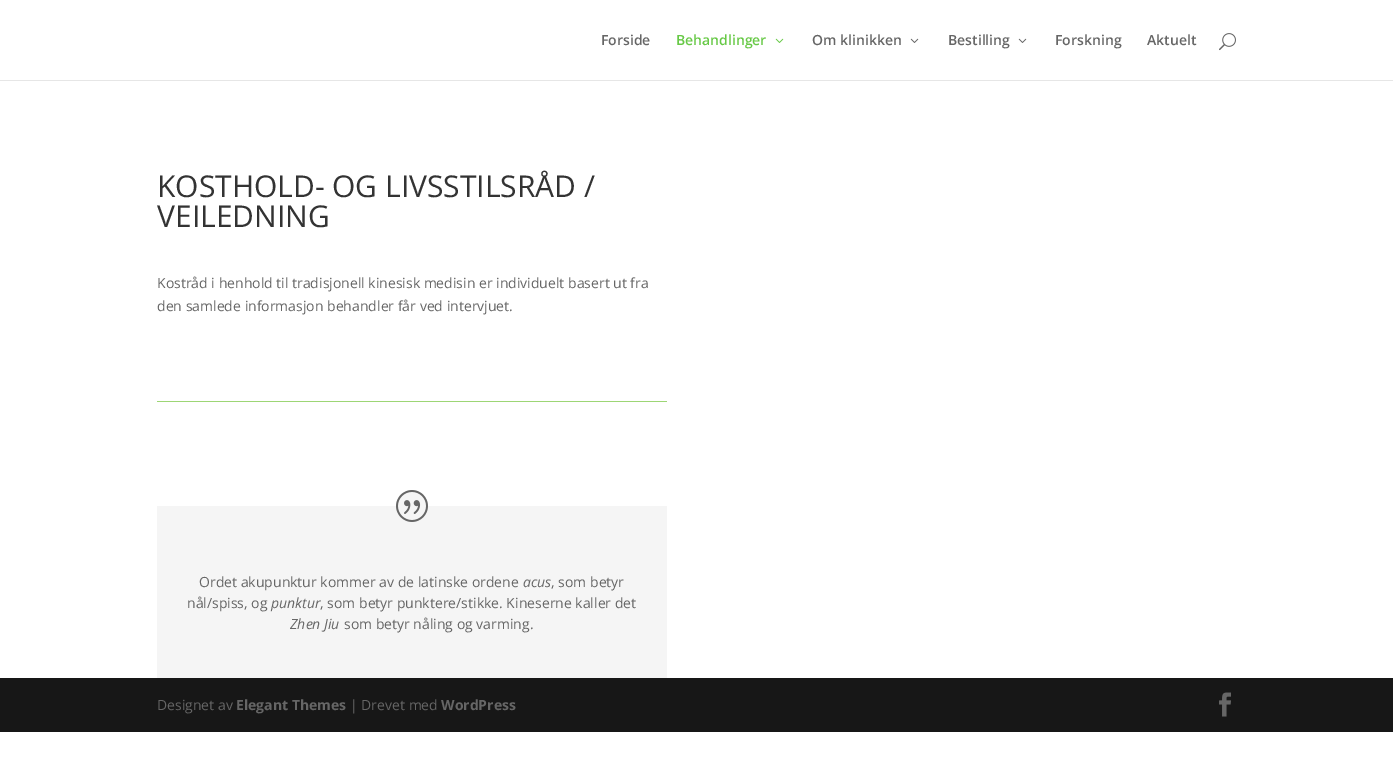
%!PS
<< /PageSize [1393 784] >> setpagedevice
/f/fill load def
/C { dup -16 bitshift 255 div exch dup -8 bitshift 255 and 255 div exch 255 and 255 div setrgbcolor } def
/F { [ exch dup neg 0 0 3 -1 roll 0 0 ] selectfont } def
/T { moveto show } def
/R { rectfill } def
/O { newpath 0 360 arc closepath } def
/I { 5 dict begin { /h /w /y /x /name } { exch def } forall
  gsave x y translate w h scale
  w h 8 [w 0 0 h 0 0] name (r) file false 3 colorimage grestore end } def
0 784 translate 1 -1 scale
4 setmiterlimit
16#FFFFFF C
0 0 1393 784 R
16#E6E6E6 C
0 80 1393 1 R
/OpenSans-SemiBold 14 F
16#666666 C
(Forside) 601 45 T
16#67C946 C
(Behandlinger) 676 45 T
(1.rgb) 775 38 9 5 I
16#666666 C
(Om klinikken) 812 45 T
(2.rgb) 910 38 9 5 I
(Bestilling) 948 45 T
(2.rgb) 1018 38 9 5 I
(Forskning) 1055 45 T
(Aktuelt) 1147 45 T
(3.rgb) 1219 33 17 18 I
/OpenSans-Regular 30 F
16#333333 C
(KOSTHOLD- OG LIVSSTILSRÅD /) 157 197 T
(VEILEDNING) 157 227 T
/OpenSans-Regular 14 F
16#666666 C
(Kostråd i henhold til tradisjonell kinesisk medisin er individuelt basert ut fra) 157 288 T
(den samlede informasjon behandler får ved intervjuet.) 157 311 T
16#9DD675 C
157 401 510 1 R
16#F5F5F5 C
157 506 510 172 R
412 506 16 O f
(4.rgb) 396 490 32 32 I
16#666666 C
(Ordet akupunktur kommer av de latinske ordene) 199 587 T
/OpenSans-Italic 14 F
(acus) 523 587 T
/OpenSans-Regular 14 F
(, som betyr) 551 587 T
(nål/spiss, og) 187 608 T
/OpenSans-Italic 14 F
(punktur) 271 608 T
/OpenSans-Regular 14 F
(, som betyr punktere/stikke. Kineserne kaller det) 320 608 T
/OpenSans-Italic 14 F
(Zhen Jiu) 290 629 T
/OpenSans-Regular 14 F
(som betyr nåling og varming.) 344 629 T
16#171717 C
0 678 1393 54 R
16#666666 C
(Designet av) 157 710 T
/OpenSans-Bold 14 F
(Elegant Themes) 236 710 T
/OpenSans-Regular 14 F
(| Drevet med) 350 710 T
/OpenSans-Bold 14 F
(WordPress) 441 710 T
(5.rgb) 1219 692 12 25 I
showpage
